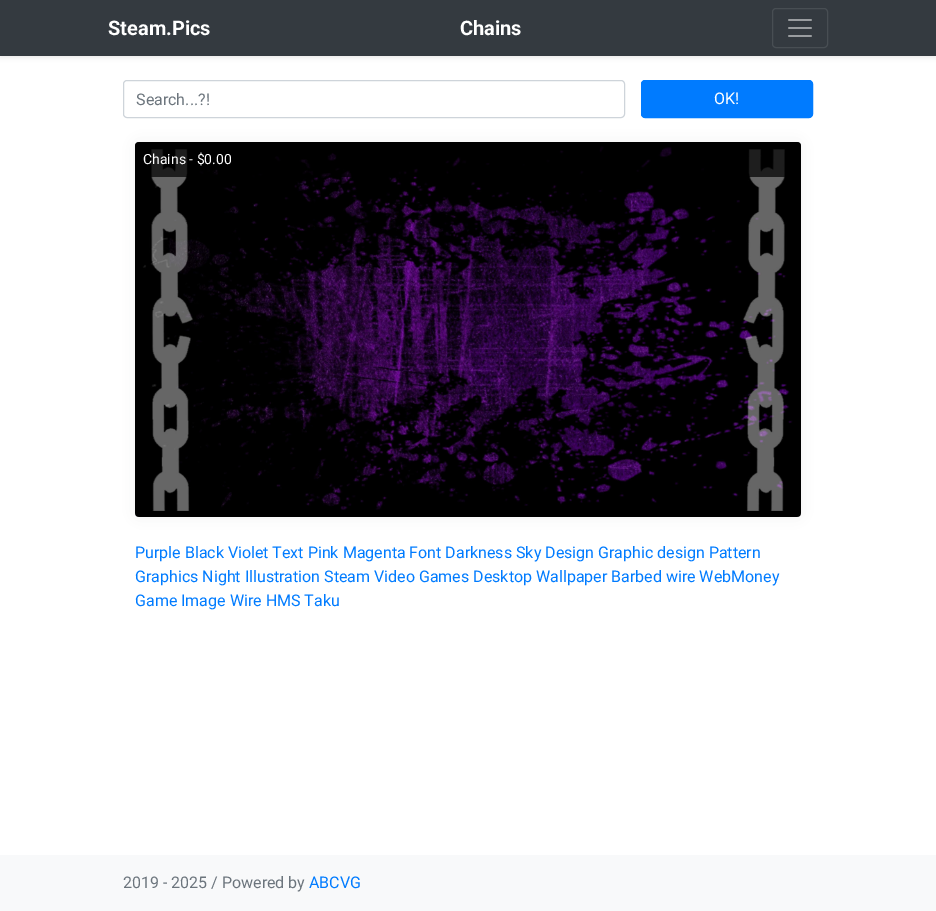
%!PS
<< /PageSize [936 911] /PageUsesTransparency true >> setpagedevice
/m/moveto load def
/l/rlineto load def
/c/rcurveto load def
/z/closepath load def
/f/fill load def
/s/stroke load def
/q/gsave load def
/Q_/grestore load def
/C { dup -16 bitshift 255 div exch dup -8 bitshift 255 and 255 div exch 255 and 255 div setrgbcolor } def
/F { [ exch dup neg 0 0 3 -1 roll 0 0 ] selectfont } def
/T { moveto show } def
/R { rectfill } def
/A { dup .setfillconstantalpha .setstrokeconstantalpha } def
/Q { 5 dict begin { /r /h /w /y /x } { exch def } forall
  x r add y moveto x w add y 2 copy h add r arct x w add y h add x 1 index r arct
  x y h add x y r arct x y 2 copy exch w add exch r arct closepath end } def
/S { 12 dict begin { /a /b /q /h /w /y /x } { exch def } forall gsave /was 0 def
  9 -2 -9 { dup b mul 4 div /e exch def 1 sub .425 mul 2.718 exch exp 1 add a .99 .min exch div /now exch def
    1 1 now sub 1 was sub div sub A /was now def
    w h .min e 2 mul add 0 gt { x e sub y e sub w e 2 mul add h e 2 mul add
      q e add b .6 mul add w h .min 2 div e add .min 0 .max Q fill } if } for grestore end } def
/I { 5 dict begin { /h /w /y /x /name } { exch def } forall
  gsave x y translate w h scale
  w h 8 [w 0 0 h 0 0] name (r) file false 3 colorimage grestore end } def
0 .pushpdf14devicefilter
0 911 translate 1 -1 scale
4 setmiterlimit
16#FFFFFF C
0 0 936 911 R
16#000000 C
0 2 936 56 0 2 .07 S
16#343A40 C
0 0 936 56 R
/Roboto-Bold 20 F
16#FFFFFF C
(Steam.Pics) 108 35 T
(Chains) 460 35 T
16#484E53 C
772.5 8.5 55 39 3.5 Q s
(1.rgb) 788 19 24 18 I
16#CED4DA C
123.5 80.5 501 37 3.5 Q s
/Roboto-Regular 16 F
16#6C757D C
(Search...?!) 136 105 T
16#007BFF C
641.5 80.5 171 37 3.5 Q q f Q_
s
16#FFFFFF C
(OK!) 714 104 T
16#9AA1AB C
135 142 666 375 4 7.5 .15 S
(2.rgb) 135 142 666 375 I
0.7 A
16#000000 C
139 142 m 658 0 l 2 0 4 2 4 4 c 0 31 l -666 0 l 0 -31 l 0 -2 2 -4 4 -4 c z f
/Roboto-Regular 14 F
1 A
16#FFFFFF C
(Chains - $0.00) 143 164 T
/Roboto-Regular 16 F
16#007BFF C
(Purple Black Violet Text Pink Magenta Font Darkness Sky Design Graphic design Pattern) 135 558 T
(Graphics Night Illustration Steam Video Games Desktop Wallpaper Barbed wire WebMoney) 135 582 T
(Game Image Wire HMS Taku) 135 606 T
16#F8F9FA C
0 855 936 56 R
16#6C757D C
(2019 - 2025 / Powered by) 123 888 T
16#007BFF C
(ABCVG) 309 888 T
.poppdf14devicefilter showpage
